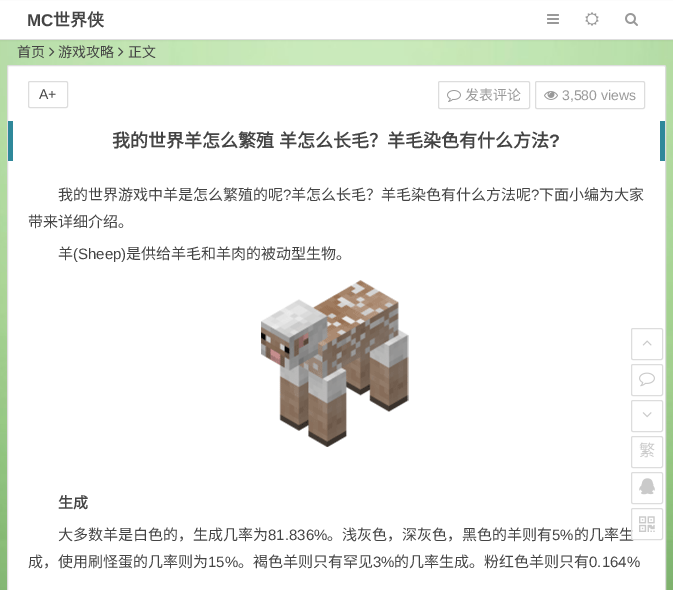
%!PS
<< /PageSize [673 590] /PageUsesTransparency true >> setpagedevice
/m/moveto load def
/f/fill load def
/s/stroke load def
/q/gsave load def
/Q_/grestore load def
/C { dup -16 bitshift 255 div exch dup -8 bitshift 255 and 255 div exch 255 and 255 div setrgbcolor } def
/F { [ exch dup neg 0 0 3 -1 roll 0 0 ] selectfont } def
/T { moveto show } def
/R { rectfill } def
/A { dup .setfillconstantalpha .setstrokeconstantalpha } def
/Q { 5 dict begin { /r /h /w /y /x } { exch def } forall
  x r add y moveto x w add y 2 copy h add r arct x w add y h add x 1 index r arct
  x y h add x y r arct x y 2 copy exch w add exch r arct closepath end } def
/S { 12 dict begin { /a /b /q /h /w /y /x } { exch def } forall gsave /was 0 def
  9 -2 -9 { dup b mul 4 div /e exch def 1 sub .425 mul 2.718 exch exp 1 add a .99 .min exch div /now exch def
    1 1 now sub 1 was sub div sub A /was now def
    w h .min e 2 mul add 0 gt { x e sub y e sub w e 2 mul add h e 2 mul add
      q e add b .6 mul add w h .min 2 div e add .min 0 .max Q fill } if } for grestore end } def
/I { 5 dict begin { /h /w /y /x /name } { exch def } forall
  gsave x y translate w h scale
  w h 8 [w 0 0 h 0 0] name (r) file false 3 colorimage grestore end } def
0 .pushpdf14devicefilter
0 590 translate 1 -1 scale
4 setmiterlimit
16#FFFFFF C
0 0 673 590 R
(1.rgb) 0 40 673 550 I
16#000000 C
0 1 673 40 0 .5 .04 S
16#FFFFFF C
0 1 673 38 R
16#DDDDDD C
0 39 673 1 R
/LiberationSans-Bold 17 F
16#444444 C
(MC) 27 26 T
/NotoSansCJKSC-Bold 17 F
(世界侠) 53 26 T
(2.rgb) 547 14 12 10 I
(3.rgb) 585 12 14 14 I
(4.rgb) 625 13 13 13 I
/NotoSansCJKSC-Regular 14 F
(首页) 17 57 T
(5.rgb) 49 47 6 10 I
(游戏攻略) 58 57 T
(6.rgb) 118 47 6 10 I
(正文) 128 57 T
16#FFFFFF C
7.5 65.5 658 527 1.5 Q q f Q_
16#DDDDDD C
s
28.5 81.5 39 26 1.5 Q s
/LiberationSans-Regular 14 F
16#444444 C
(A+) 39 99 T
16#DDDDDD C
438.5 81.5 91 27 1.5 Q s
(7.rgb) 447 90 14 12 I
/NotoSansCJKSC-Regular 14 F
16#999999 C
(发表评论) 465 100 T
16#DDDDDD C
535.5 81.5 109 27 1.5 Q s
(8.rgb) 544 91 14 9 I
/LiberationSans-Regular 14 F
16#999999 C
(3,580 views) 562 100 T
/NotoSansCJKSC-Regular 15 F
16#444444 C
(我的世界游戏中羊是怎么繁殖的呢) 58 200 T
/LiberationSans-Regular 15 F
(?) 283 200 T
/NotoSansCJKSC-Regular 15 F
(羊怎么长毛？羊毛染色有什么方法呢) 291 200 T
/LiberationSans-Regular 15 F
(?) 531 200 T
/NotoSansCJKSC-Regular 15 F
(下面小编为大家) 539 200 T
(带来详细介绍。) 28 227 T
(羊) 58 259 T
/LiberationSans-Regular 15 F
(\(Sheep\)) 73 259 T
/NotoSansCJKSC-Regular 15 F
(是供给羊毛和羊肉的被动型生物。) 126 259 T
(9.rgb) 261 280 148 167 I
/NotoSansCJKSC-Bold 15 F
(生成) 58 508 T
/NotoSansCJKSC-Regular 15 F
(大多数羊是白色的，生成几率为) 58 540 T
/LiberationSans-Regular 15 F
(81.836%) 268 540 T
/NotoSansCJKSC-Regular 15 F
(。浅灰色，深灰色，黑色的羊则有) 327 540 T
/LiberationSans-Regular 15 F
(5%) 552 540 T
/NotoSansCJKSC-Regular 15 F
(的几率生) 574 540 T
(成，使用刷怪蛋的几率则为) 28 567 T
/LiberationSans-Regular 15 F
(15%) 208 567 T
/NotoSansCJKSC-Regular 15 F
(。褐色羊则只有罕见) 238 567 T
/LiberationSans-Regular 15 F
(3%) 373 567 T
/NotoSansCJKSC-Regular 15 F
(的几率生成。粉红色羊则只有) 394 567 T
/LiberationSans-Regular 15 F
(0.164%) 589 567 T
16#2F889A C
660 121 5 40 R
8 121 5 40 R
/NotoSansCJKSC-Bold 18 F
16#444444 C
112 147 m 1 0 32 (我的世界羊怎么繁殖 羊怎么长毛？羊毛染色有什么方法) widthshow
/LiberationSans-Bold 18 F
(?) 549 147 T
16#DDDDDD C
631.5 328.5 31 31 1.5 Q s
(10.rgb) 642 340 10 6 I
631.5 364.5 31 31 1.5 Q s
(11.rgb) 639 372 16 15 I
631.5 400.5 31 31 1.5 Q s
(12.rgb) 642 412 10 6 I
631.5 436.5 31 31 1.5 Q s
/NotoSansCJKSC-Regular 16 F
16#CACACA C
(繁) 639 456 T
16#DDDDDD C
631.5 472.5 31 31 1.5 Q s
(13.rgb) 639 478 16 17 I
0.6 A
16#FFFFFF C
631.5 508.5 31 31 1.5 Q f
1 A
16#DDDDDD C
631.5 508.5 31 31 1.5 Q s
(14.rgb) 639 516 16 16 I
.poppdf14devicefilter showpage
